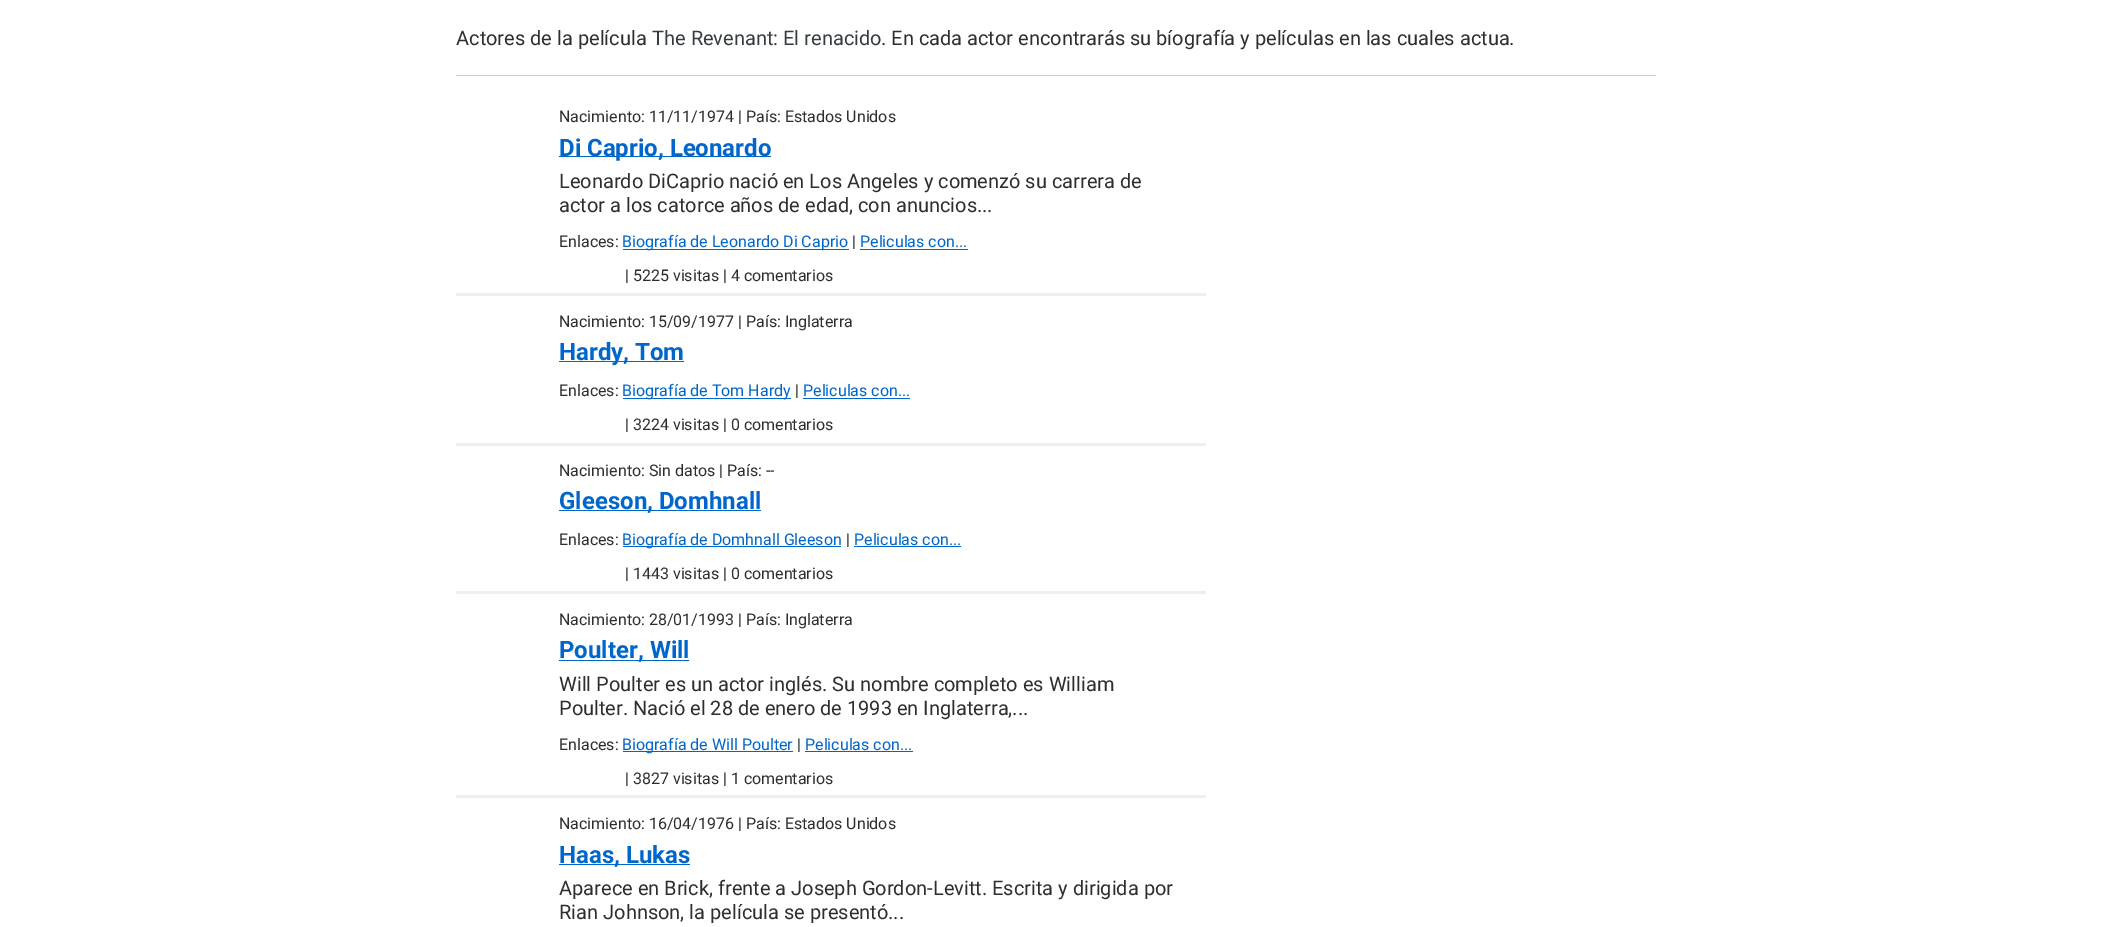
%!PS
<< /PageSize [2112 927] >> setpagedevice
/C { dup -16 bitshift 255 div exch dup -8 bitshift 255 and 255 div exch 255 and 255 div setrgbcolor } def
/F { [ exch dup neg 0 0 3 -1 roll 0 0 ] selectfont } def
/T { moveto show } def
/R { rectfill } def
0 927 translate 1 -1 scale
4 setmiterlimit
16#FFFFFF C
0 0 2112 927 R
16#CCCCCC C
456 75 1200 1 R
/Roboto-Regular 20 F
16#2D2F2F C
(Actores de la película) 456 45 T
16#353C40 C
(The Revenant: El renacido) 652 45 T
16#2D2F2F C
(. En cada actor encontrarás su bíografía y películas en las cuales actua.) 881 45 T
16#EEEEEE C
456 293 750 3 R
/Roboto-Regular 16 F
16#2D2F2F C
(Nacimiento: 11/11/1974 | País: Estados Unidos) 559 122 T
16#0066CC C
559 156 212 1 R
/Roboto-Bold 24 F
(Di Caprio, Leonardo) 559 156 T
/Roboto-Regular 20 F
16#2D2F2F C
(Leonardo DiCaprio nació en Los Angeles y comenzó su carrera de) 559 188 T
(actor a los catorce años de edad, con anuncios...) 559 212 T
/Roboto-Regular 16 F
(Enlaces:) 559 247 T
16#0066CC C
623 249 226 1 R
(Biografía de Leonardo Di Caprio) 622 247 T
16#2D2F2F C
(|) 852 247 T
16#0066CC C
(Peliculas con...) 860 247 T
860 249 108 1 R
16#2D2F2F C
(| 5225 visitas | 4 comentarios) 625 281 T
16#EEEEEE C
456 443 750 3 R
16#2D2F2F C
(Nacimiento: 15/09/1977 | País: Inglaterra) 559 327 T
16#0066CC C
559 361 125 1 R
/Roboto-Bold 24 F
(Hardy, Tom) 559 360 T
/Roboto-Regular 16 F
16#2D2F2F C
(Enlaces:) 559 396 T
16#0066CC C
623 398 168 1 R
(Biografía de Tom Hardy) 622 396 T
16#2D2F2F C
(|) 795 396 T
16#0066CC C
(Peliculas con...) 803 396 T
803 398 107 1 R
16#2D2F2F C
(| 3224 visitas | 0 comentarios) 625 430 T
16#EEEEEE C
456 591 750 3 R
16#2D2F2F C
(Nacimiento: Sin datos | País: --) 559 476 T
16#0066CC C
559 510 202 1 R
/Roboto-Bold 24 F
(Gleeson, Domhnall) 559 509 T
/Roboto-Regular 16 F
16#2D2F2F C
(Enlaces:) 559 545 T
16#0066CC C
623 546 218 1 R
(Biografía de Domhnall Gleeson) 622 545 T
16#2D2F2F C
(|) 846 545 T
16#0066CC C
(Peliculas con...) 854 545 T
854 546 107 1 R
16#2D2F2F C
(| 1443 visitas | 0 comentarios) 625 579 T
16#EEEEEE C
456 795 750 3 R
16#2D2F2F C
(Nacimiento: 28/01/1993 | País: Inglaterra) 559 625 T
16#0066CC C
559 660 130 1 R
/Roboto-Bold 24 F
(Poulter, Will) 559 658 T
/Roboto-Regular 20 F
16#2D2F2F C
(Will Poulter es un actor inglés. Su nombre completo es William) 559 691 T
(Poulter. Nació el 28 de enero de 1993 en Inglaterra,...) 559 715 T
/Roboto-Regular 16 F
(Enlaces:) 559 750 T
16#0066CC C
623 751 170 1 R
(Biografía de Will Poulter) 622 750 T
16#2D2F2F C
(|) 797 750 T
16#0066CC C
(Peliculas con...) 805 750 T
805 751 108 1 R
16#2D2F2F C
(| 3827 visitas | 1 comentarios) 625 784 T
(Nacimiento: 16/04/1976 | País: Estados Unidos) 559 829 T
16#0066CC C
559 864 131 1 R
/Roboto-Bold 24 F
(Haas, Lukas) 559 863 T
/Roboto-Regular 20 F
16#2D2F2F C
(Aparece en Brick, frente a Joseph Gordon-Levitt. Escrita y dirigida por) 559 895 T
(Rian Johnson, la película se presentó...) 559 919 T
showpage
